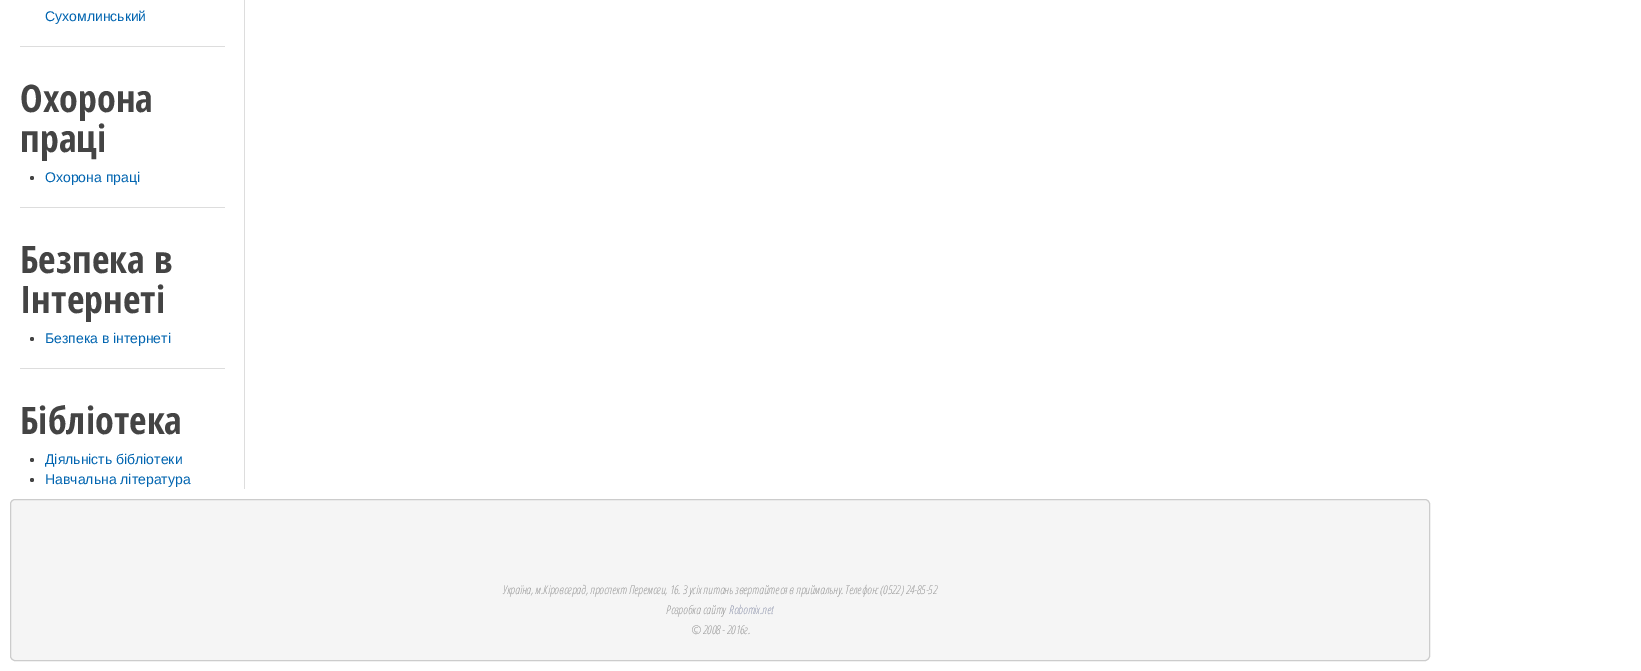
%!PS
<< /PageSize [1641 671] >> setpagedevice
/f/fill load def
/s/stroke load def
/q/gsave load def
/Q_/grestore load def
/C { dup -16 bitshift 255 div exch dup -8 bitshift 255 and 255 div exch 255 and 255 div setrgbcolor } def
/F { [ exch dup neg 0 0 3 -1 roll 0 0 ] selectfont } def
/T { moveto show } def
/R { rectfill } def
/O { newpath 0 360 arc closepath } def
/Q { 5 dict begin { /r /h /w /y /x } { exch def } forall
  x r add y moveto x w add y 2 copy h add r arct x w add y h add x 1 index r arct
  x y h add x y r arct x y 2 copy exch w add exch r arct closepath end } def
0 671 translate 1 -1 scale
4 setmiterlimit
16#FFFFFF C
0 0 1641 671 R
/LiberationSans-Regular 14 F
16#0064B0 C
(Сухомлинський) 45 21 T
16#DDDDDD C
244 0 1 489 R
20 46 205 1 R
/OpenSansCondensed-Bold 38 F
16#444444 C
(Охорона) 20 112 T
(праці) 20 152 T
32 178 2 O f
/LiberationSans-Regular 14 F
16#0064B0 C
(Охорона праці) 45 182 T
16#DDDDDD C
20 207 205 1 R
/OpenSansCondensed-Bold 38 F
16#444444 C
(Безпека в) 20 273 T
(Iнтернетi) 20 313 T
32 339 2 O f
/LiberationSans-Regular 14 F
16#0064B0 C
(Безпека в інтернеті) 45 343 T
16#DDDDDD C
20 368 205 1 R
/OpenSansCondensed-Bold 38 F
16#444444 C
(Бібліотека) 20 434 T
32 460 2 O f
/LiberationSans-Regular 14 F
16#0064B0 C
(Діяльність бібліотеки) 45 464 T
16#444444 C
32 480 2 O f
16#0064B0 C
(Навчальна література) 45 484 T
16#F5F5F5 C
10.5 499.5 1419 161 4.5 Q q f Q_
16#CCCCCC C
s
/OpenSansCondensed-LightItalic 12 F
16#999999 C
(Україна, м.Кіровоград, проспект Перемоги, 16. З усіх питань звертайтеся в приймальну. Телефон: \(0522\) 24-85-52) 503 594 T
(Розробка сайту) 666 614 T
16#9298AF C
(Robomix.net) 729 614 T
16#999999 C
(© 2008 - 2016г.) 691 634 T
showpage
